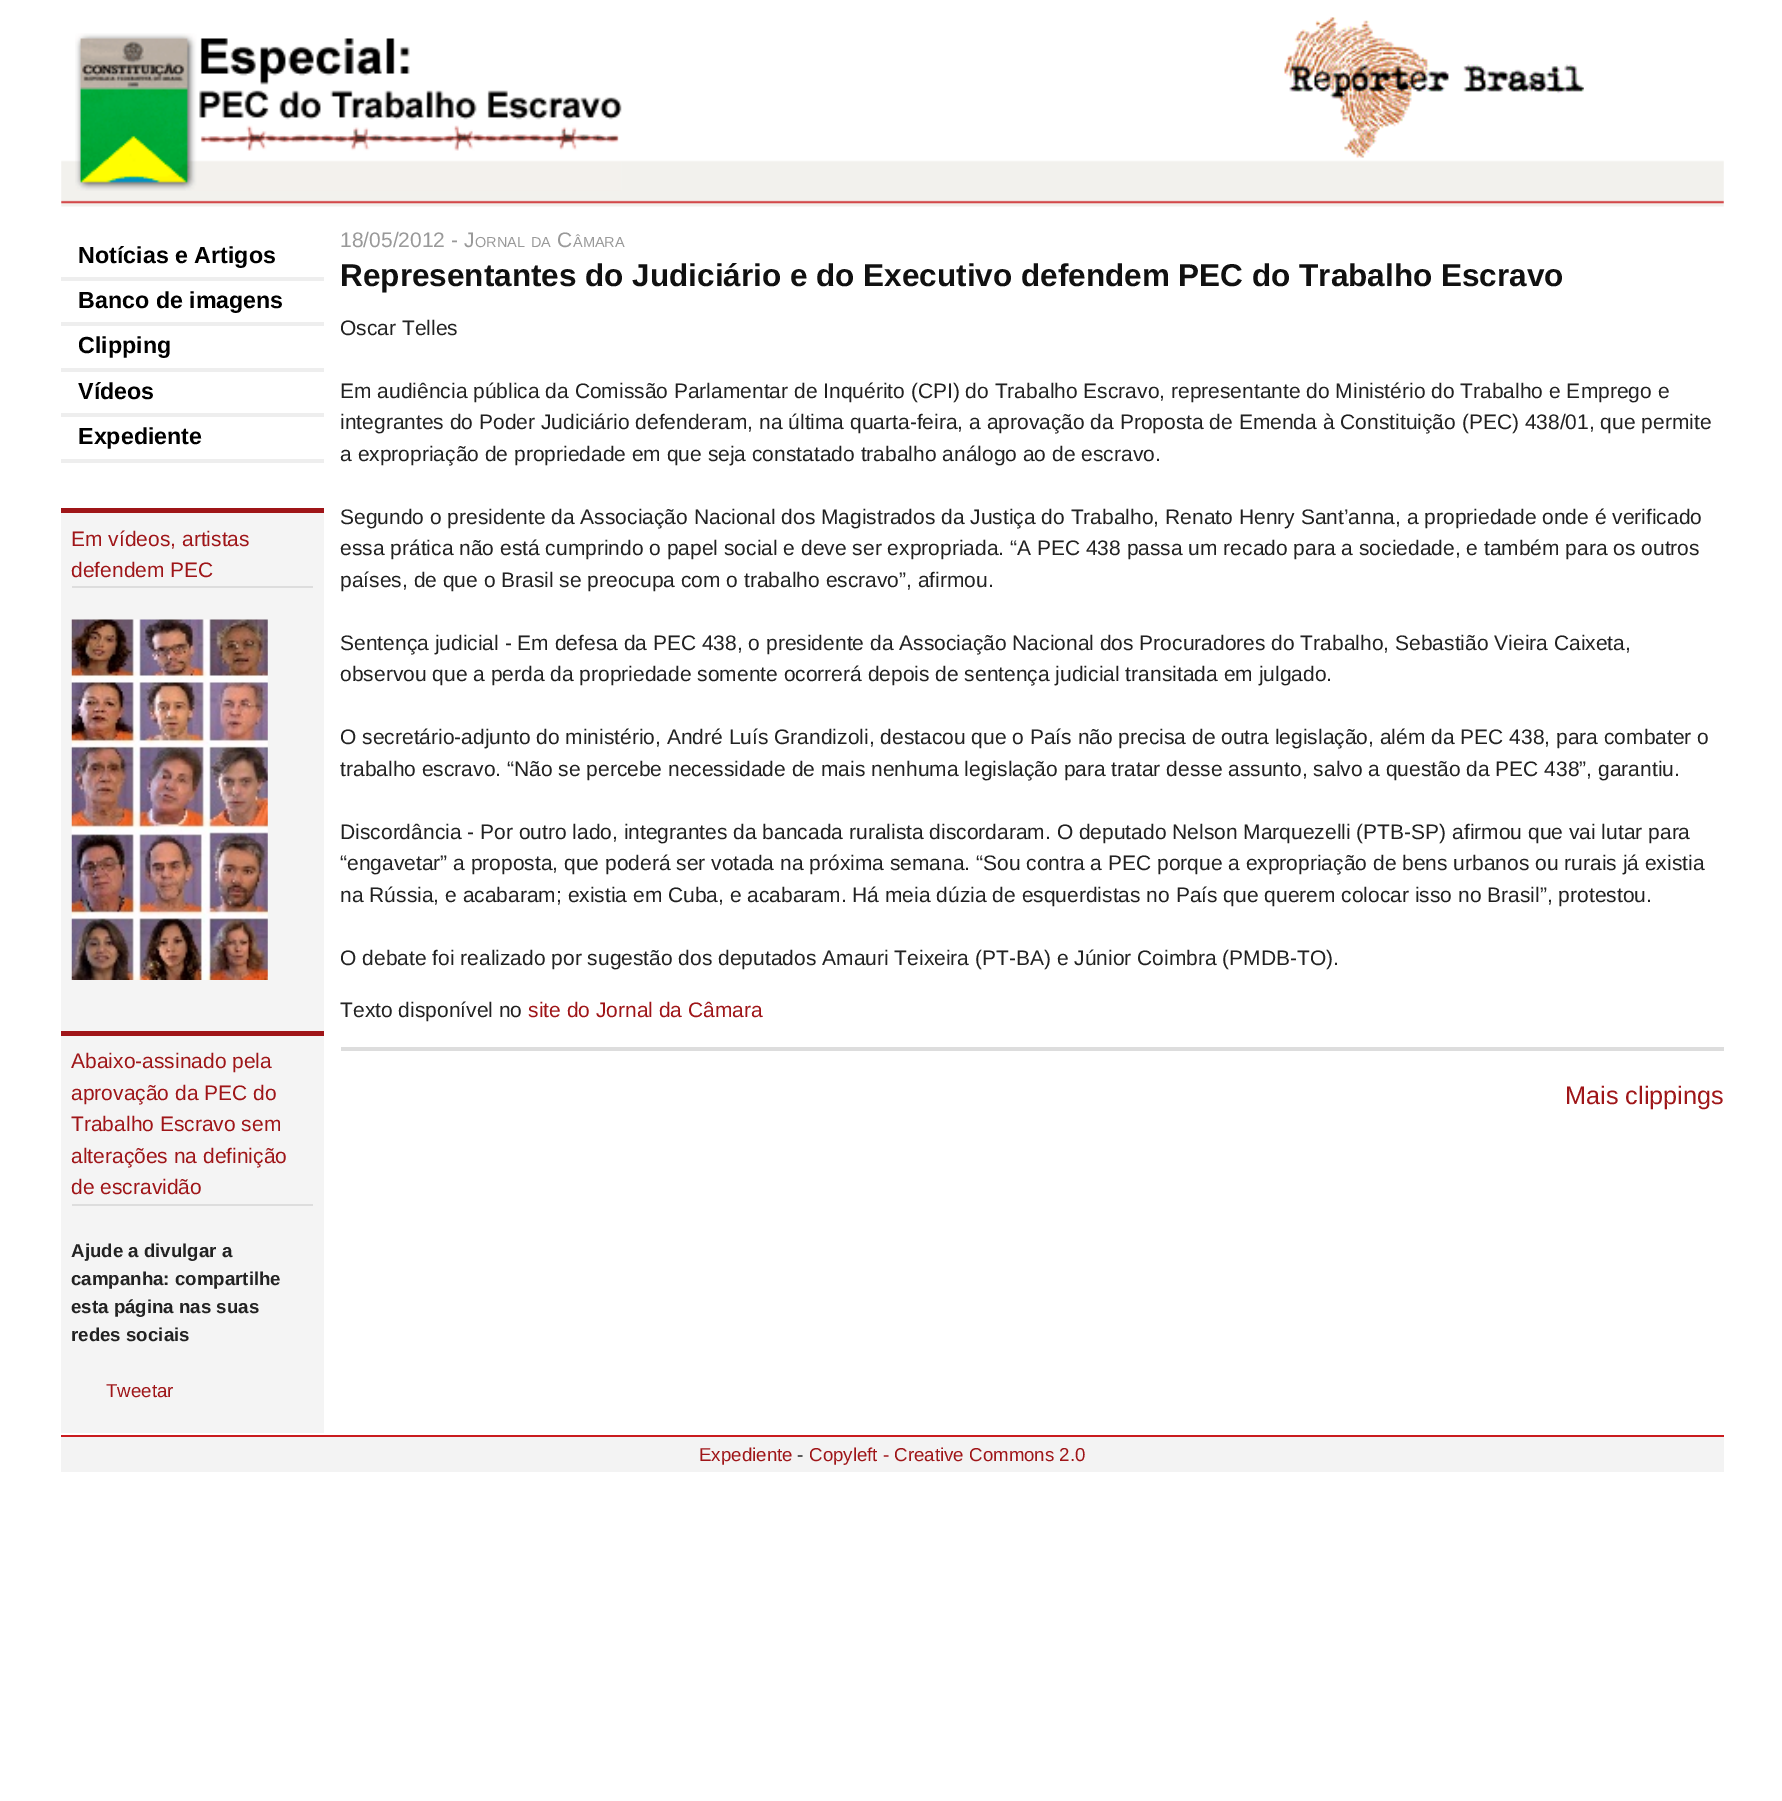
%!PS
<< /PageSize [1782 1801] >> setpagedevice
/C { dup -16 bitshift 255 div exch dup -8 bitshift 255 and 255 div exch 255 and 255 div setrgbcolor } def
/F { [ exch dup neg 0 0 3 -1 roll 0 0 ] selectfont } def
/T { moveto show } def
/R { rectfill } def
/I { 5 dict begin { /h /w /y /x /name } { exch def } forall
  gsave x y translate w h scale
  w h 8 [w 0 0 h 0 0] name (r) file false 3 colorimage grestore end } def
0 1801 translate 1 -1 scale
4 setmiterlimit
16#FFFFFF C
0 0 1782 1801 R
(1.rgb) 61 160 1663 47 I
(2.rgb) 75 33 547 158 I
(3.rgb) 1284 17 300 141 I
16#EEEEEE C
61 277 263 4 R
/LiberationSans-Bold 23.25 F
16#000000 C
(Notícias e Artigos) 78 263 T
16#EEEEEE C
61 322 263 4 R
16#000000 C
(Banco de imagens) 78 308 T
16#EEEEEE C
61 368 263 4 R
16#000000 C
(Clipping) 78 353 T
16#EEEEEE C
61 413 263 4 R
16#000000 C
(Vídeos) 78 399 T
16#EEEEEE C
61 459 263 4 R
16#000000 C
(Expediente) 78 444 T
16#F4F4F4 C
61 513 263 518 R
16#9F1518 C
61 508 263 5 R
/LiberationSans-Regular 21 F
(Em vídeos, artistas) 71 546 T
(defendem PEC) 71 577 T
16#DDDDDD C
72 586 241 2 R
(4.rgb) 71 619 197 361 I
16#F4F4F4 C
61 1036 263 397 R
16#9F1518 C
61 1031 263 5 R
(Abaixo-assinado pela) 71 1068 T
(aprovação da PEC do) 71 1100 T
(Trabalho Escravo sem) 71 1131 T
(alterações na definição) 71 1163 T
(de escravidão) 71 1194 T
16#DDDDDD C
72 1204 241 2 R
/LiberationSans-Bold 18.7 F
16#222222 C
(Ajude a divulgar a) 71 1257 T
(campanha: compartilhe) 71 1285 T
(esta página nas suas) 71 1313 T
(redes sociais) 71 1341 T
/LiberationSans-Regular 18.7 F
16#9F1518 C
(Tweetar) 106 1397 T
/LiberationSans-Regular 21 F
16#999999 C
(18/05/2012 - J) 340 247 T
/LiberationSans-Regular 14.5 F
(ORNAL) 475 247 T
(DA) 531 247 T
/LiberationSans-Regular 21 F
(C) 557 247 T
/LiberationSans-Regular 14.5 F
(ÂMARA) 573 247 T
/LiberationSans-Bold 31.5 F
16#111111 C
(Representantes do Judiciário e do Executivo defendem PEC do Trabalho Escravo) 340 286 T
/LiberationSans-Regular 21 F
16#222222 C
(Oscar Telles) 340 335 T
(Em audiência pública da Comissão Parlamentar de Inquérito \(CPI\) do Trabalho Escravo, representante do Ministério do Trabalho e Emprego e) 340 398 T
(integrantes do Poder Judiciário defenderam, na última quarta-feira, a aprovação da Proposta de Emenda à Constituição \(PEC\) 438/01, que permite) 340 429 T
(a expropriação de propriedade em que seja constatado trabalho análogo ao de escravo.) 340 461 T
(Segundo o presidente da Associação Nacional dos Magistrados da Justiça do Trabalho, Renato Henry Sant’anna, a propriedade onde é verificado) 340 524 T
(essa prática não está cumprindo o papel social e deve ser expropriada. “A PEC 438 passa um recado para a sociedade, e também para os outros) 340 555 T
(países, de que o Brasil se preocupa com o trabalho escravo”, afirmou.) 340 587 T
(Sentença judicial - Em defesa da PEC 438, o presidente da Associação Nacional dos Procuradores do Trabalho, Sebastião Vieira Caixeta,) 340 650 T
(observou que a perda da propriedade somente ocorrerá depois de sentença judicial transitada em julgado.) 340 681 T
(O secretário-adjunto do ministério, André Luís Grandizoli, destacou que o País não precisa de outra legislação, além da PEC 438, para combater o) 340 744 T
(trabalho escravo. “Não se percebe necessidade de mais nenhuma legislação para tratar desse assunto, salvo a questão da PEC 438”, garantiu.) 340 776 T
(Discordância - Por outro lado, integrantes da bancada ruralista discordaram. O deputado Nelson Marquezelli \(PTB-SP\) afirmou que vai lutar para) 340 839 T
(“engavetar” a proposta, que poderá ser votada na próxima semana. “Sou contra a PEC porque a expropriação de bens urbanos ou rurais já existia) 340 870 T
(na Rússia, e acabaram; existia em Cuba, e acabaram. Há meia dúzia de esquerdistas no País que querem colocar isso no Brasil”, protestou.) 340 902 T
(O debate foi realizado por sugestão dos deputados Amauri Teixeira \(PT-BA\) e Júnior Coimbra \(PMDB-TO\).) 340 965 T
(Texto disponível no) 340 1017 T
16#9F1518 C
(site do Jornal da Câmara) 528 1017 T
16#DDDDDD C
341 1047 1383 4 R
/LiberationSans-Regular 25.25 F
16#9F1518 C
(Mais clippings) 1565 1104 T
16#F3F3F3 C
61 1437 1663 35 R
16#CA1B1E C
61 1435 1663 2 R
/LiberationSans-Regular 18.7 F
16#9F1518 C
(Expediente) 699 1461 T
16#222222 C
(-) 797 1461 T
16#9F1518 C
(Copyleft - Creative Commons 2.0) 809 1461 T
showpage
